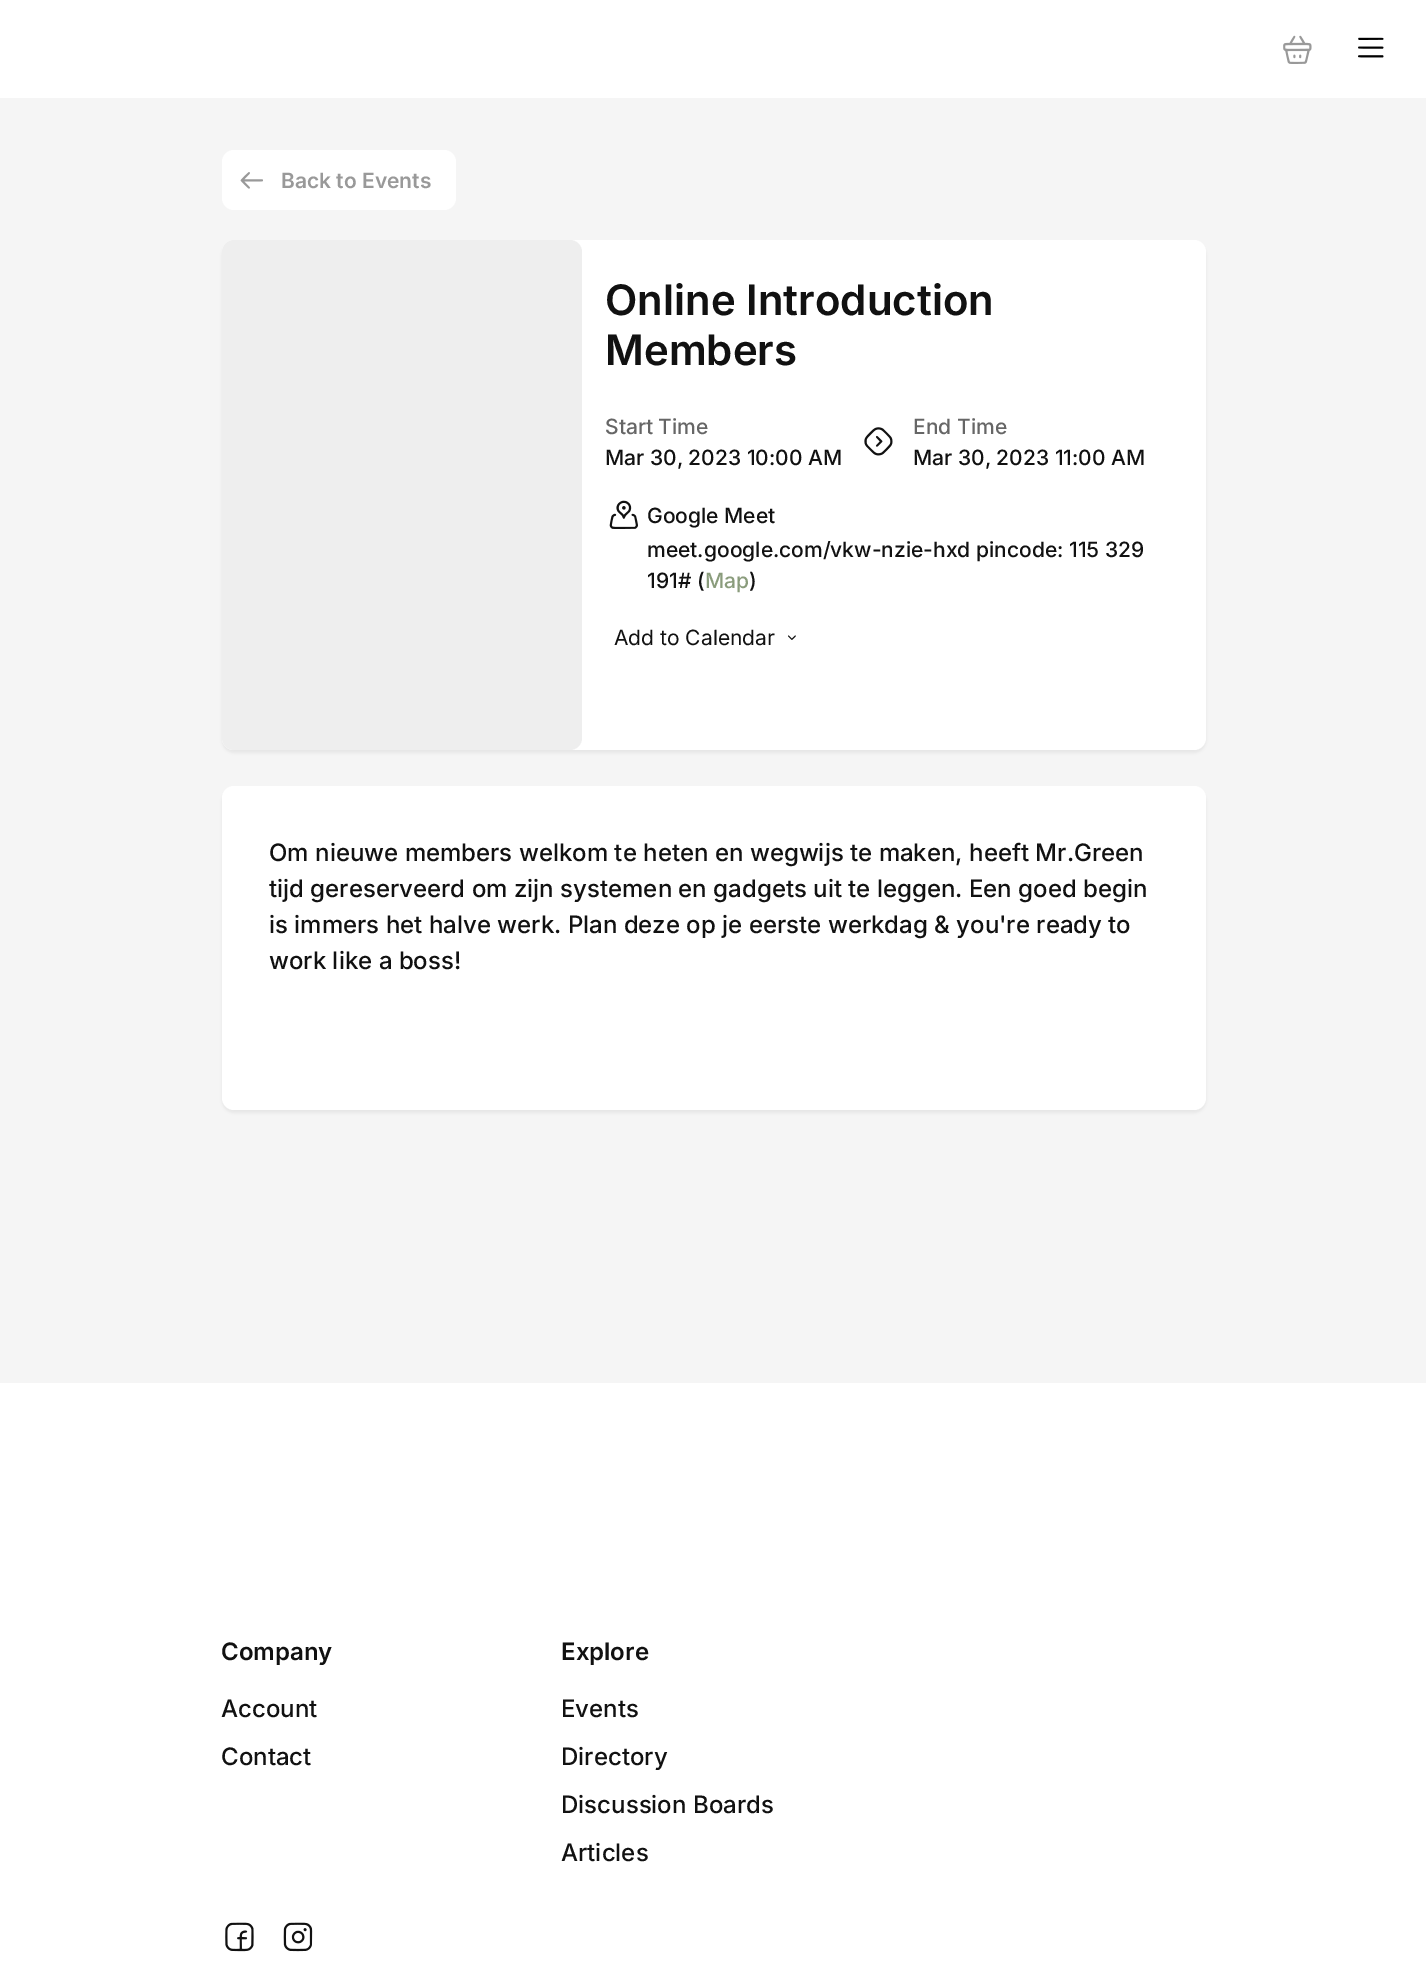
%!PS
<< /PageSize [1426 1979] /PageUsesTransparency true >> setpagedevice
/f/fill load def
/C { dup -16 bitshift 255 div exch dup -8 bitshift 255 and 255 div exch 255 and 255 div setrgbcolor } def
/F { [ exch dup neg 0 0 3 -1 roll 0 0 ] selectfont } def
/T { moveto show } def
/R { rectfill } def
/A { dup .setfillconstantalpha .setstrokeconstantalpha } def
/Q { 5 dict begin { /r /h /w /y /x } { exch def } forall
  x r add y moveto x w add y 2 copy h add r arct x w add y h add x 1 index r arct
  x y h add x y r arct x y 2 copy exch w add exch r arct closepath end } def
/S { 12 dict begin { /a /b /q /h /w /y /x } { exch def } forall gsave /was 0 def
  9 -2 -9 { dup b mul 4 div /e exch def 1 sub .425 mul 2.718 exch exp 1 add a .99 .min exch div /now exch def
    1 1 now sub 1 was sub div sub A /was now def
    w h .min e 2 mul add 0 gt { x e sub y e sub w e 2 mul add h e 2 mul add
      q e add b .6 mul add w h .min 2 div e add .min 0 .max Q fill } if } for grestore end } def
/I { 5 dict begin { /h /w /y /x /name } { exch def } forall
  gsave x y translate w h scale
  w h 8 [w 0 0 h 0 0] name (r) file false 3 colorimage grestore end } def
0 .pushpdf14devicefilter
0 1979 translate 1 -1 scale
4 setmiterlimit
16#F5F5F5 C
0 0 1426 1979 R
16#FFFFFF C
0 0 1426 98 R
(1.rgb) 1283 35 29 29 I
(2.rgb) 1358 37 26 21 I
222 150 234 60 12 Q f
(3.rgb) 240 172 23 17 I
/Inter-SemiBold 21 F
16#999999 C
(Back to Events) 281 188 T
16#121212 C
222 243 984 510 12 1.5 .05 S
16#FFFFFF C
222 240 984 510 12 Q f
16#EEEEEE C
222 240 360 510 12 Q f
/Inter-SemiBold 42 F
16#111111 C
(Online Introduction) 605 315 T
(Members) 605 365 T
/Inter-Medium 21 F
16#666666 C
(Start Time) 605 434 T
16#111111 C
(Mar 30, 2023 10:00 AM) 605 465 T
(4.rgb) 864 427 29 29 I
16#666666 C
(End Time) 913 434 T
16#111111 C
(Mar 30, 2023 11:00 AM) 913 465 T
(5.rgb) 609 500 29 29 I
(Google Meet) 647 523 T
(meet.google.com/vkw-nzie-hxd pincode: 115 329) 647 557 T
(191# \() 647 588 T
16#8A9C7C C
(Map) 705 588 T
16#111111 C
(\)) 749 588 T
/Inter-Regular 21 F
(Add to Calendar) 614 645 T
(6.rgb) 788 635 8 5 I
16#121212 C
222 789 984 324 12 1.5 .05 S
16#FFFFFF C
222 786 984 324 12 Q f
/Inter-Medium 24 F
16#111111 C
(Om nieuwe members welkom te heten en wegwijs te maken, heeft Mr.Green) 269 861 T
(tijd gereserveerd om zijn systemen en gadgets uit te leggen. Een goed begin) 269 897 T
(is immers het halve werk. Plan deze op je eerste werkdag & you're ready to) 269 933 T
(work like a boss!) 269 969 T
16#FFFFFF C
0 1383 1426 596 R
/Inter-SemiBold 24 F
16#111111 C
(Company) 221 1660 T
/Inter-Medium 24 F
(Account) 221 1717 T
(Contact) 221 1765 T
/Inter-SemiBold 24 F
(Explore) 561 1660 T
/Inter-Medium 24 F
(Events) 561 1717 T
(Directory) 561 1765 T
(Discussion Boards) 561 1813 T
(Articles) 561 1861 T
(7.rgb) 225 1922 29 30 I
(8.rgb) 283 1922 30 30 I
.poppdf14devicefilter showpage
